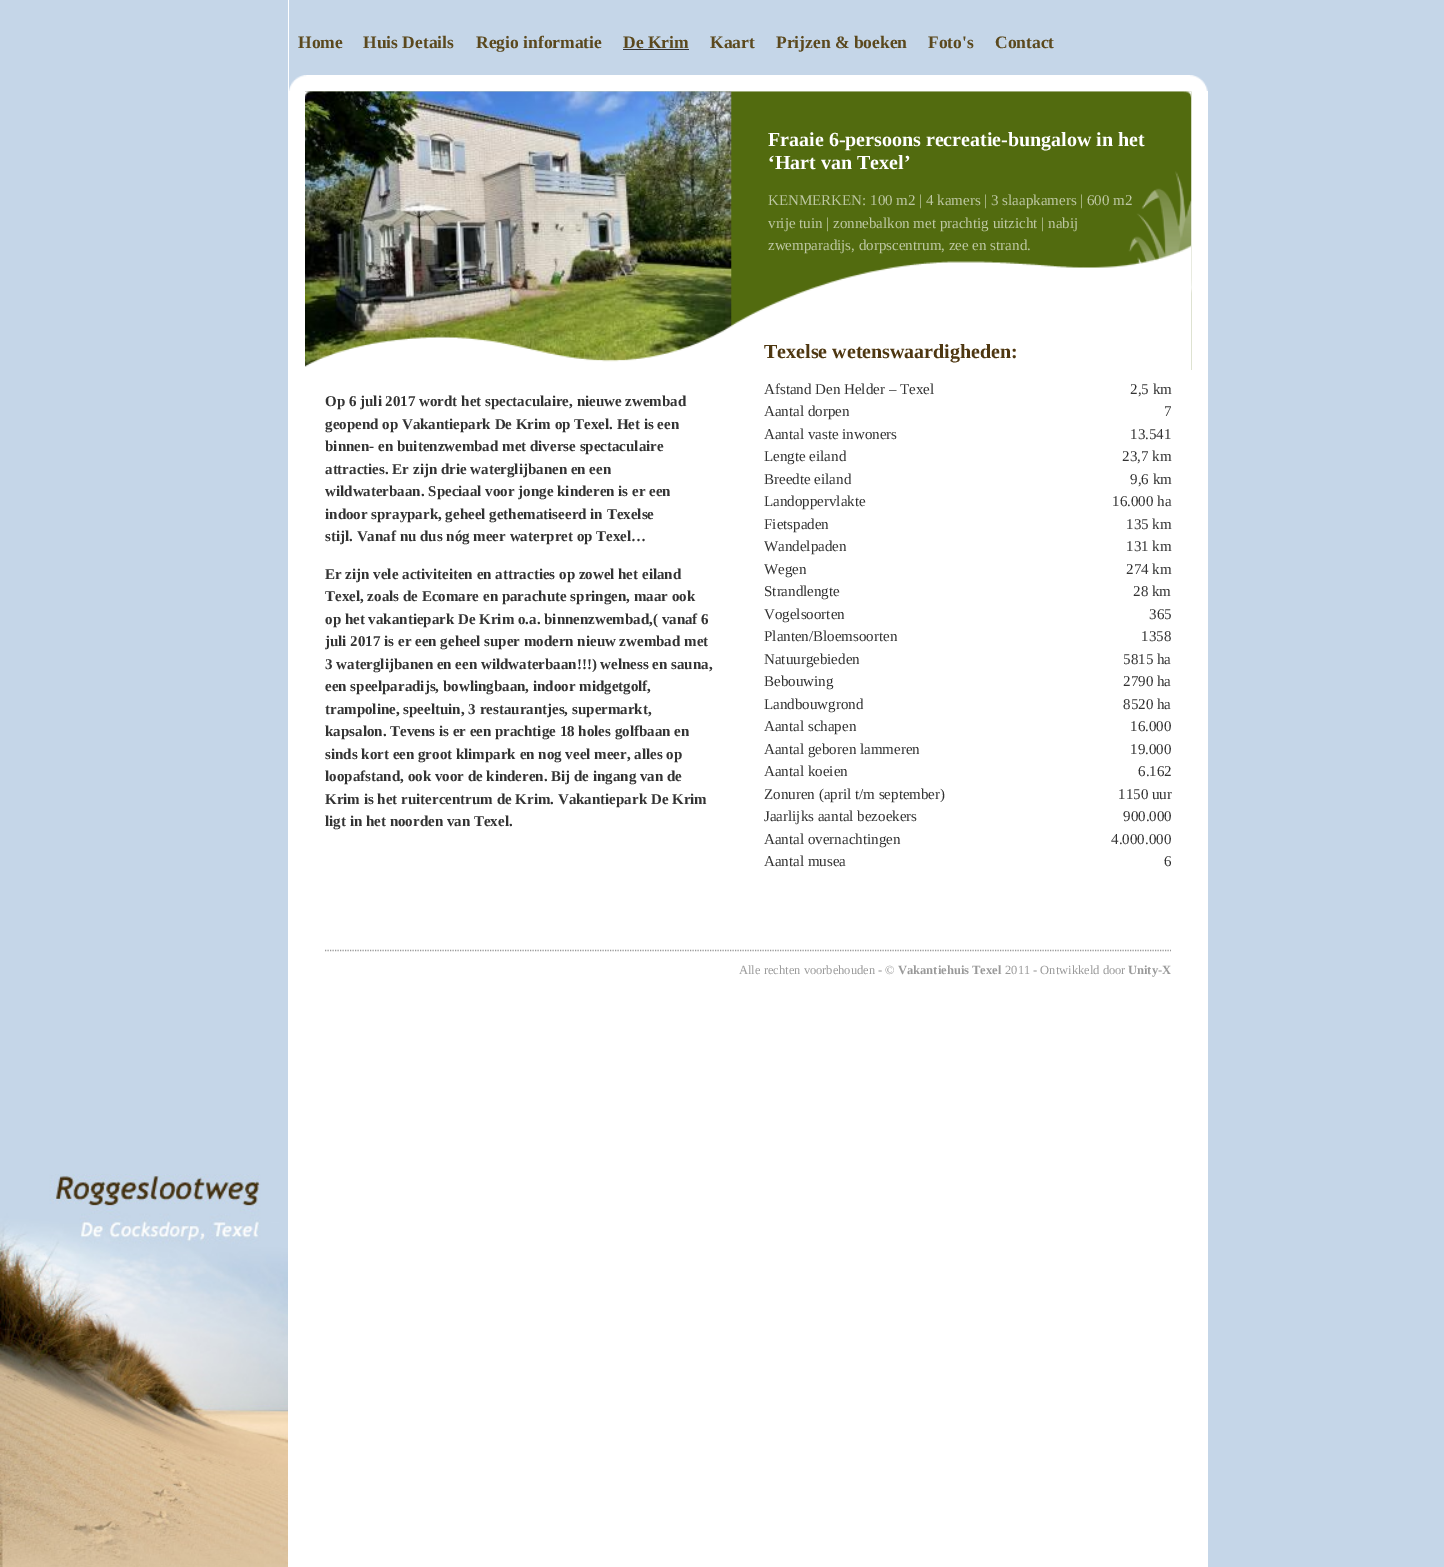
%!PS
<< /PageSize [1444 1567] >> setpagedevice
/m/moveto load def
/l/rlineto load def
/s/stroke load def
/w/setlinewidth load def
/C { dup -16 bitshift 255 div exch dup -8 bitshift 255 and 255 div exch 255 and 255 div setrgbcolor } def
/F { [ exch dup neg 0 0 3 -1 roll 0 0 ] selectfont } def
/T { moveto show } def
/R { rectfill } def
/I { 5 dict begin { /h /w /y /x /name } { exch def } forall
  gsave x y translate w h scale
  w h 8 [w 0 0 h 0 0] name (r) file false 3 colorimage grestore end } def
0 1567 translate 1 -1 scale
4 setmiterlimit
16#C5D6E8 C
0 0 1444 1567 R
(1.rgb) 0 1174 288 393 I
16#FFFFFF C
288 0 920 1567 R
16#C5D6E8 C
289 0 919 91 R
/LiberationSerif-Bold 17.5 F
16#5B491E C
(Home) 298 48 T
(Huis Details) 363 48 T
(Regio informatie) 476 48 T
(De Krim) 623 48 T
16#333333 C
623 49 66 1 R
16#5B491E C
(Kaart) 710 48 T
(Prijzen & boeken) 776 48 T
(Foto's) 928 48 T
(Contact) 995 48 T
(3.rgb) 305 91 887 279 I
(4.rgb) 305 91 427 276 I
(5.rgb) 305 91 887 279 I
(2.rgb) 289 75 919 17 I
/LiberationSerif-Bold 20 F
16#FFFFFF C
(Fraaie 6-persoons recreatie-bungalow in het) 768 146 T
(‘Hart van Texel’) 768 169 T
/LiberationSerif-Regular 15 F
16#BEC8A3 C
(KENMERKEN: 100 m2 | 4 kamers | 3 slaapkamers | 600 m2) 768 205 T
(vrije tuin | zonnebalkon met prachtig uitzicht | nabij) 768 228 T
(zwemparadijs, dorpscentrum, zee en strand.) 768 250 T
/LiberationSerif-Bold 15 F
16#333333 C
(Op 6 juli 2017 wordt het spectaculaire, nieuwe zwembad) 325 406 T
(geopend op Vakantiepark De Krim op Texel. Het is een) 325 429 T
(binnen- en buitenzwembad met diverse spectaculaire) 325 451 T
(attracties. Er zijn drie waterglijbanen en een) 325 474 T
(wildwaterbaan. Speciaal voor jonge kinderen is er een) 325 496 T
(indoor spraypark, geheel gethematiseerd in Texelse) 325 519 T
(stijl. Vanaf nu dus nóg meer waterpret op Texel…) 325 541 T
(Er zijn vele activiteiten en attracties op zowel het eiland) 325 579 T
(Texel, zoals de Ecomare en parachute springen, maar ook) 325 601 T
(op het vakantiepark De Krim o.a. binnenzwembad,\( vanaf 6) 325 624 T
(juli 2017 is er een geheel super modern nieuw zwembad met) 325 646 T
(3 waterglijbanen en een wildwaterbaan!!!\) welness en sauna,) 325 669 T
(een speelparadijs, bowlingbaan, indoor midgetgolf,) 325 691 T
(trampoline, speeltuin, 3 restaurantjes, supermarkt,) 325 714 T
(kapsalon. Tevens is er een prachtige 18 holes golfbaan en) 325 736 T
(sinds kort een groot klimpark en nog veel meer, alles op) 325 759 T
(loopafstand, ook voor de kinderen. Bij de ingang van de) 325 781 T
(Krim is het ruitercentrum de Krim. Vakantiepark De Krim) 325 804 T
(ligt in het noorden van Texel.) 325 826 T
/LiberationSerif-Bold 20 F
16#4E3711 C
(Texelse wetenswaardigheden:) 764 358 T
/LiberationSerif-Regular 15 F
16#333333 C
(Afstand Den Helder – Texel) 764 394 T
(2,5 km) 1130 394 T
(Aantal dorpen) 764 416 T
(7) 1164 416 T
(Aantal vaste inwoners) 764 439 T
(13.541) 1130 439 T
(Lengte eiland) 764 461 T
(23,7 km) 1122 461 T
(Breedte eiland) 764 484 T
(9,6 km) 1130 484 T
(Landoppervlakte) 764 506 T
(16.000 ha) 1112 506 T
(Fietspaden) 764 529 T
(135 km) 1126 529 T
(Wandelpaden) 764 551 T
(131 km) 1126 551 T
(Wegen) 764 574 T
(274 km) 1126 574 T
(Strandlengte) 764 596 T
(28 km) 1133 596 T
(Vogelsoorten) 764 619 T
(365) 1149 619 T
(Planten/Bloemsoorten) 764 641 T
(1358) 1141 641 T
(Natuurgebieden) 764 664 T
(5815 ha) 1123 664 T
(Bebouwing) 764 686 T
(2790 ha) 1123 686 T
(Landbouwgrond) 764 709 T
(8520 ha) 1123 709 T
(Aantal schapen) 764 731 T
(16.000) 1130 731 T
(Aantal geboren lammeren) 764 754 T
(19.000) 1130 754 T
(Aantal koeien) 764 776 T
(6.162) 1138 776 T
(Zonuren \(april t/m september\)) 764 799 T
(1150 uur) 1118 799 T
(Jaarlijks aantal bezoekers) 764 821 T
(900.000) 1123 821 T
(Aantal overnachtingen) 764 844 T
(4.000.000) 1111 844 T
(Aantal musea) 764 866 T
(6) 1164 866 T
16#999999 C
1.2 w
[1.25 1.25] 0 setdash
325 950.5 m 846 0 l s
/LiberationSerif-Regular 12.5 F
(Alle rechten voorbehouden - ©) 739 974 T
/LiberationSerif-Bold 12.5 F
(Vakantiehuis Texel) 898 974 T
/LiberationSerif-Regular 12.5 F
(2011 - Ontwikkeld door) 1005 974 T
/LiberationSerif-Bold 12.5 F
(Unity-X) 1128 974 T
showpage
